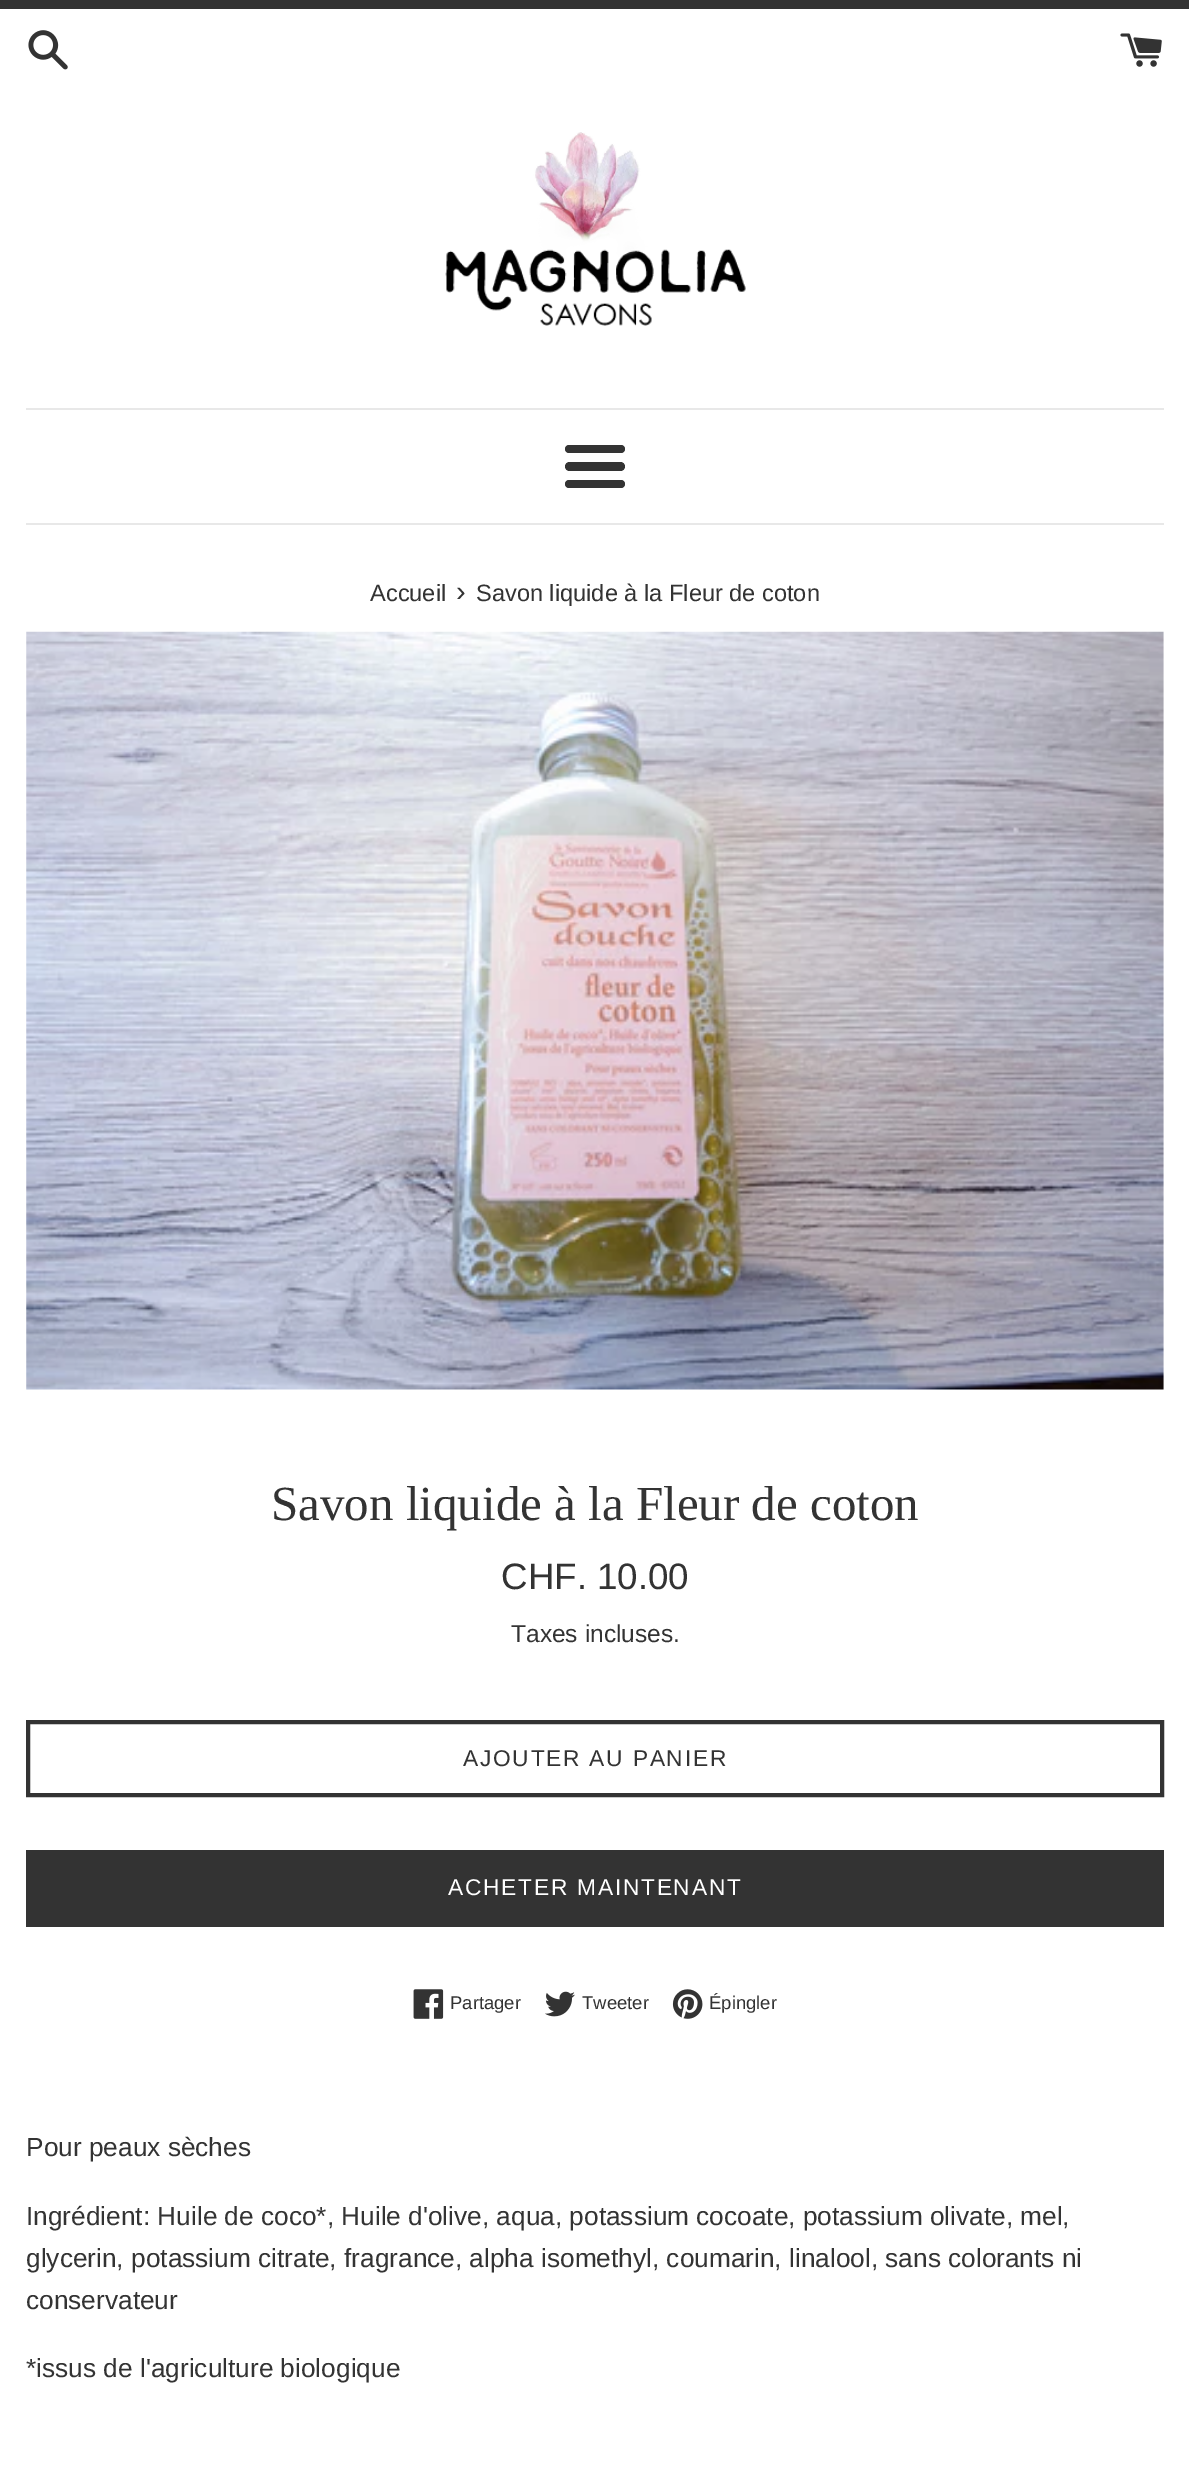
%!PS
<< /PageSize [1189 2483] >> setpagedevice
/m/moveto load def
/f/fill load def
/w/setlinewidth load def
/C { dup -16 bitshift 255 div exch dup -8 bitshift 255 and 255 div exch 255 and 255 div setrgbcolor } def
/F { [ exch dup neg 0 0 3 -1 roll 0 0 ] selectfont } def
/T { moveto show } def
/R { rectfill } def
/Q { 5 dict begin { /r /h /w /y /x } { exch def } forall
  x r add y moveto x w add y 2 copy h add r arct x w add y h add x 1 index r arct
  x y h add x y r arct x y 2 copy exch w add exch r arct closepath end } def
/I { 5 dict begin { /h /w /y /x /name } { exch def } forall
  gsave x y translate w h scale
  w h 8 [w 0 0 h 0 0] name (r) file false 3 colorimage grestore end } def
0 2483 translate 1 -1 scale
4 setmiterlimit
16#FFFFFF C
0 0 1189 2483 R
16#333333 C
0 0 1189 9 R
(1.rgb) 28 30 40 40 I
(2.rgb) 1120 33 42 34 I
(3.rgb) 445 132 301 194 I
16#E8E8E8 C
26 408 1138 2 R
16#333333 C
565 445 60 8 4 Q f
565 462 60 9 4.5 Q f
565 480 60 8 4 Q f
16#E8E8E8 C
26 523 1138 2 R
/LiberationSans-Regular 23.6 F
16#333333 C
(Accueil) 370 601 T
/LiberationSans-Regular 29 F
(›) 456 601 T
/LiberationSans-Regular 23.6 F
(Savon liquide à la Fleur de coton) 476 601 T
(4.rgb) 26 631 1138 759 I
/LiberationSerif-Regular 49 F
(Savon liquide à la Fleur de coton) 271 1520 T
/LiberationSans-Regular 36.75 F
(CHF. 10.00) 501 1589 T
/LiberationSans-Regular 24.5 F
(Taxes incluses.) 511 1642 T
4 w
28 1722 1134 73 rectstroke
/LiberationSans-Regular 22.75 F
463 1766 m 1.75 0 (AJOUTER AU PANIER) ashow
26 1850 1138 77 R
16#FFFFFF C
448 1895 m 1.75 0 (ACHETER MAINTENANT) ashow
(5.rgb) 413 1989 31 30 I
/LiberationSans-Regular 18.5 F
16#333333 C
(Partager) 450 2009 T
(6.rgb) 545 1991 30 26 I
(Tweeter) 582 2009 T
(7.rgb) 672 1989 31 30 I
(Épingler) 709 2009 T
/LiberationSans-Regular 26.25 F
(Pour peaux sèches) 26 2156 T
(Ingrédient: Huile de coco*, Huile d'olive, aqua, potassium cocoate, potassium olivate, mel,) 26 2225 T
(glycerin, potassium citrate, fragrance, alpha isomethyl, coumarin, linalool, sans colorants ni) 26 2267 T
(conservateur) 26 2309 T
(*issus de l'agriculture biologique) 26 2377 T
showpage
